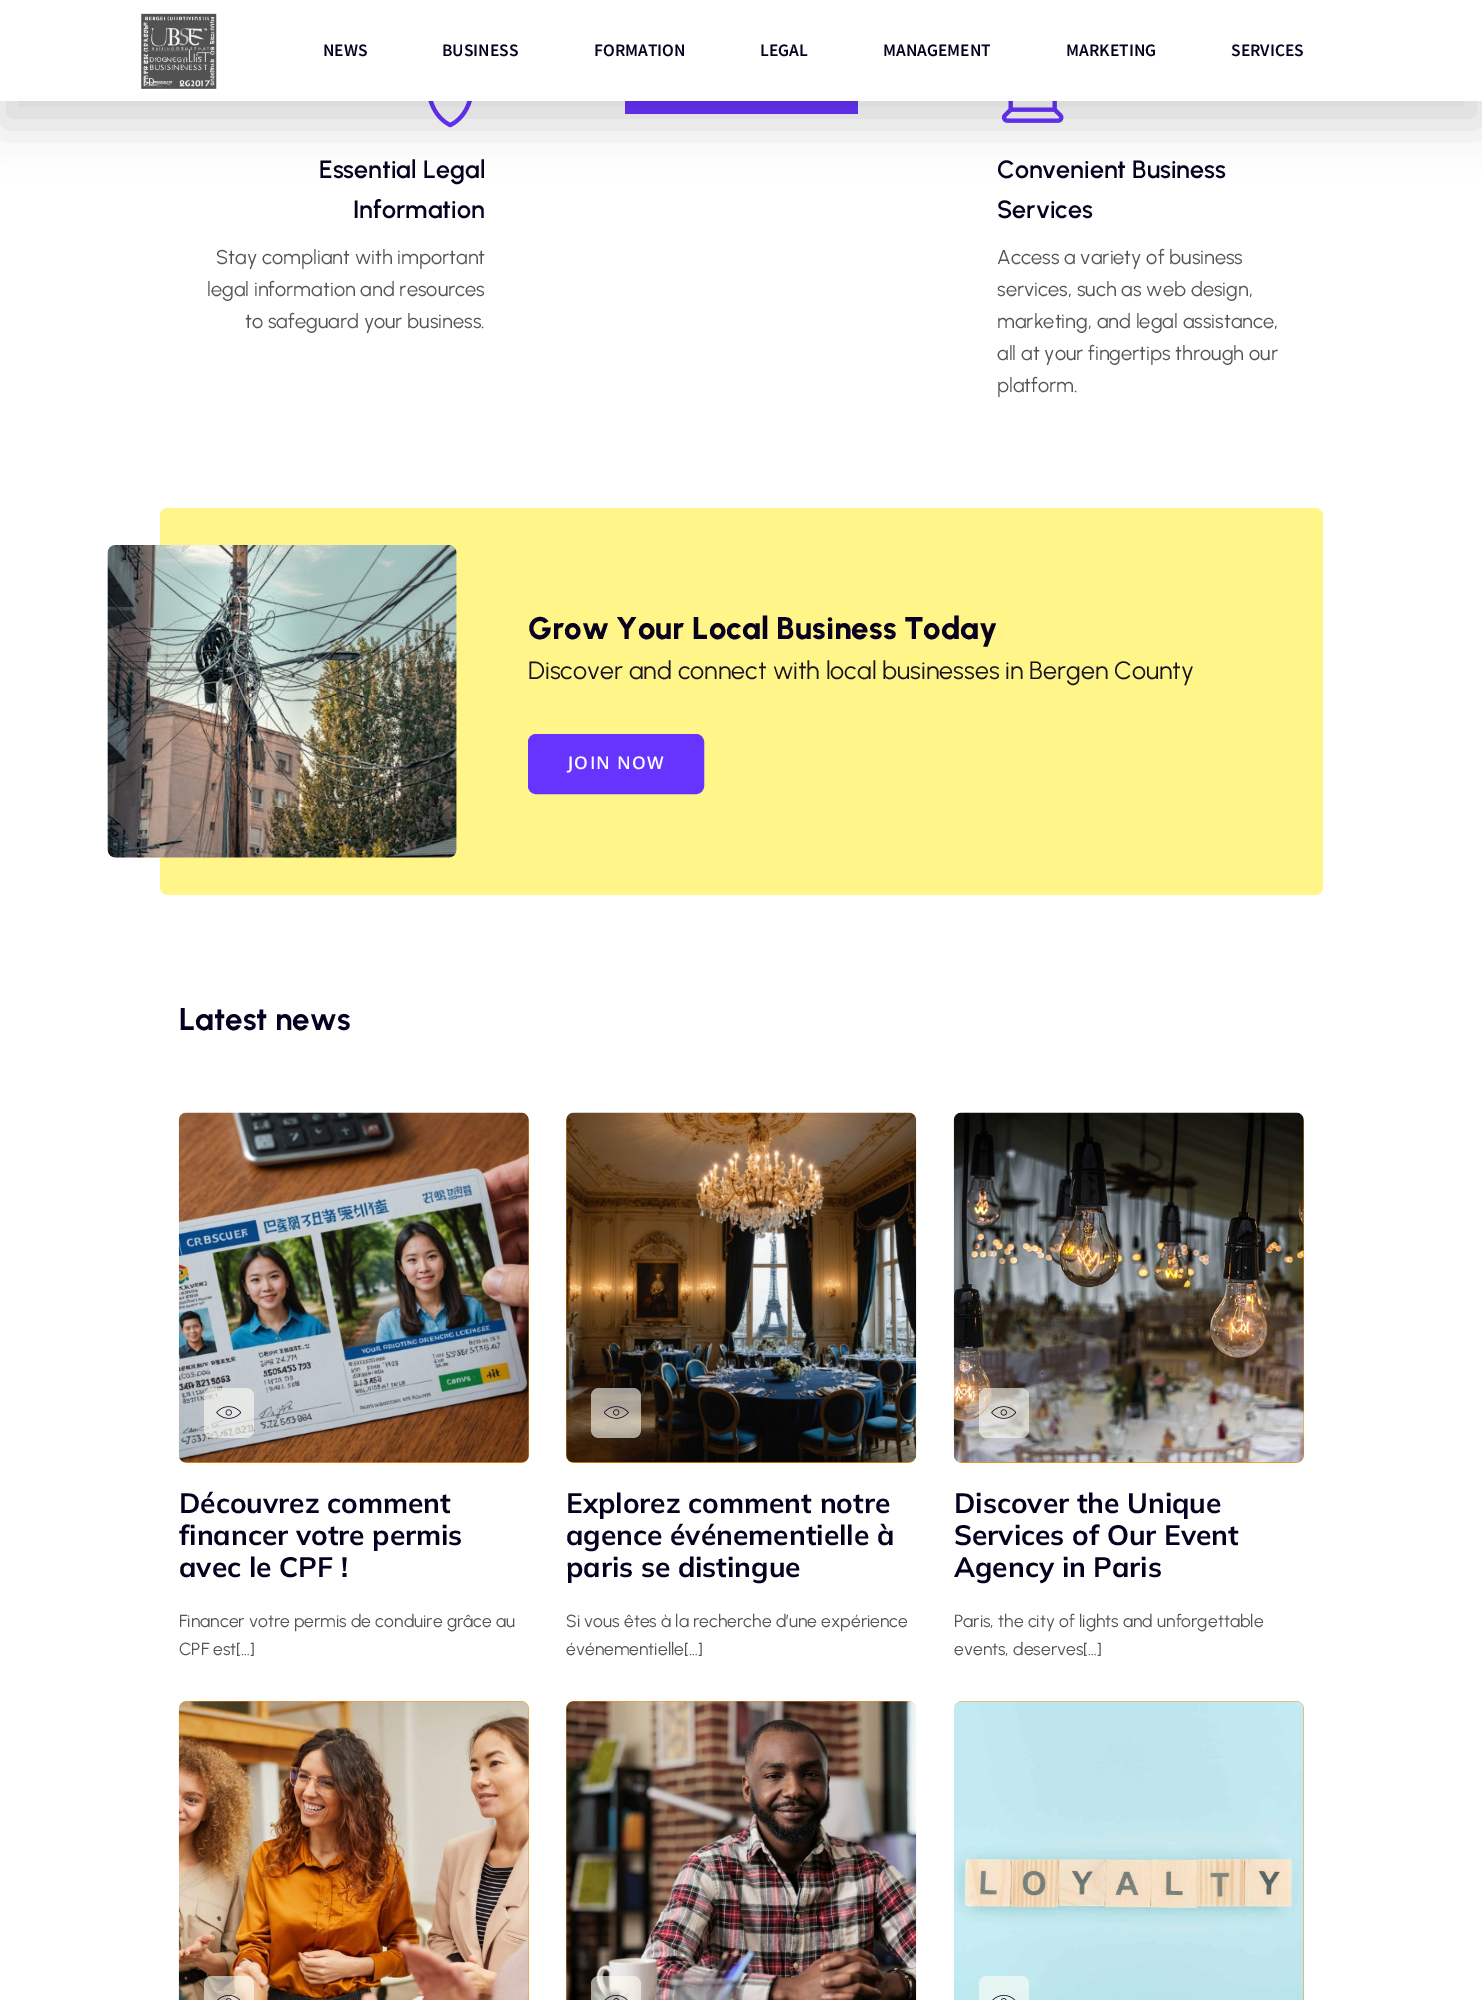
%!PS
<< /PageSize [1482 2000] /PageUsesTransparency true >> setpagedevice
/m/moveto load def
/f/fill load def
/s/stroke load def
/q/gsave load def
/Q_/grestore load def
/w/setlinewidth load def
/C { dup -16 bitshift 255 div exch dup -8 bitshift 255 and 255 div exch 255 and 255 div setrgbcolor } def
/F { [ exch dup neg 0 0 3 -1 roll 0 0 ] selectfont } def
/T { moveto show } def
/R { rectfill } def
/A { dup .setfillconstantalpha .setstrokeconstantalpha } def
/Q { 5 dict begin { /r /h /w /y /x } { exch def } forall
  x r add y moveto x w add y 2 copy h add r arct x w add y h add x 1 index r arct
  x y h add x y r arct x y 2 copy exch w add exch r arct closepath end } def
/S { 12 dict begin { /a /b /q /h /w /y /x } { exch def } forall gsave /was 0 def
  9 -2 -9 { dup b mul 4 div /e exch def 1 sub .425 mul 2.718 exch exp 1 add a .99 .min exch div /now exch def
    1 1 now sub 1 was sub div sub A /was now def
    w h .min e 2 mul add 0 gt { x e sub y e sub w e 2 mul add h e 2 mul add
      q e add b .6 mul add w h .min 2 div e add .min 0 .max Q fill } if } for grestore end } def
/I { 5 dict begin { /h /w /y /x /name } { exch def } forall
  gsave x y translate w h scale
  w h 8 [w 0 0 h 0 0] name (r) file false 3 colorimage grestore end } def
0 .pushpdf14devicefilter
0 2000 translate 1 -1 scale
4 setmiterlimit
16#FFFFFF C
0 0 1482 2000 R
16#6633FF C
625 101 233 13 R
(2.rgb) 428 101 44 27 I
(3.rgb) 1001 101 63 22 I
16#000000 C
0 24 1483 101 0 24 .16 S
16#FFFFFF C
0 0 1482 101 R
(1.rgb) 141 13 76 76 I
/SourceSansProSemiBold-SemiBold 17.5 F
16#08001F C
(NEWS) 323 56 T
(BUSINESS) 442 56 T
(FORMATION) 594 56 T
(LEGAL) 760 56 T
(MANAGEMENT) 883 56 T
(MARKETING) 1066 56 T
(SERVICES) 1231 56 T
/Urbanist-SemiBold 25 F
(Essential Legal) 319 178 T
(Information) 353 218 T
/Urbanist-Regular 20 F
16#545451 C
(Stay compliant with important) 216 264 T
(legal information and resources) 207 296 T
(to safeguard your business.) 245 328 T
/Urbanist-SemiBold 25 F
16#08001F C
(Convenient Business) 997 178 T
(Services) 997 218 T
/Urbanist-Regular 20 F
16#545451 C
(Access a variety of business) 997 264 T
(services, such as web design,) 997 296 T
(marketing, and legal assistance,) 997 328 T
(all at your fingertips through our) 997 360 T
(platform.) 997 392 T
16#FFF588 C
160 508 1163 387 8 Q f
(4.rgb) 107 545 350 313 I
/Urbanist-ExtraBold 31.25 F
16#08001F C
(Grow Your Local Business Today) 528 639 T
/Urbanist-Regular 25 F
16#17141E C
(Discover and connect with local businesses in Bergen County) 528 679 T
16#6633FF C
529.5 735.5 173 57 6.5 Q q f Q_
3 w
s
/OpenSans-SemiBold 17.5 F
16#FFFFFF C
568 769 m 1.25 0 (JOIN NOW) ashow
/Urbanist-Bold 31.25 F
16#08001F C
(Latest news) 179 1030 T
16#F79007 C
179 1113 350 350 8 Q f
(5.rgb) 178 1112 351 351 I
0.6 A
16#FFFEF5 C
204 1388 50 50 8 Q f
1 A
(6.rgb) 216 1406 25 13 I
/Mulish-Bold 28 F
16#08001F C
(Découvrez comment) 179 1513 T
(financer votre permis) 179 1545 T
(avec le CPF !) 179 1577 T
/Urbanist-Regular 17.5 F
16#545451 C
(Financer votre permis de conduire grâce au) 179 1627 T
(CPF est[…]) 179 1655 T
16#F79007 C
566 1113 350 350 8 Q f
(7.rgb) 566 1112 351 351 I
0.6 A
16#FFFEF5 C
591 1388 50 50 8 Q f
1 A
(8.rgb) 604 1406 25 13 I
/Mulish-Bold 28 F
16#08001F C
(Explorez comment notre) 566 1513 T
(agence événementielle à) 566 1545 T
(paris se distingue) 566 1577 T
/Urbanist-Regular 17.5 F
16#545451 C
(Si vous êtes à la recherche d’une expérience) 566 1627 T
(événementielle[…]) 566 1655 T
16#F79007 C
954 1113 350 350 8 Q f
(9.rgb) 953 1112 351 351 I
0.6 A
16#FFFEF5 C
979 1388 50 50 8 Q f
1 A
(10.rgb) 991 1406 25 13 I
/Mulish-Bold 28 F
16#08001F C
(Discover the Unique) 954 1513 T
(Services of Our Event) 954 1545 T
(Agency in Paris) 954 1577 T
/Urbanist-Regular 17.5 F
16#545451 C
(Paris, the city of lights and unforgettable) 954 1627 T
(events, deserves[…]) 954 1655 T
16#F79007 C
179 1701 350 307 8 Q f
(11.rgb) 178 1701 351 299 I
0.6 A
16#FFFEF5 C
204 1976 50 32 8 Q f
1 A
(12.rgb) 217 1995 24 5 I
16#F79007 C
566 1701 350 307 8 Q f
(13.rgb) 566 1701 351 299 I
0.6 A
16#FFFEF5 C
591 1976 50 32 8 Q f
1 A
(14.rgb) 604 1995 24 5 I
16#F79007 C
954 1701 350 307 8 Q f
(15.rgb) 953 1701 351 299 I
0.6 A
16#FFFEF5 C
979 1976 50 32 8 Q f
1 A
(16.rgb) 992 1995 24 5 I
.poppdf14devicefilter showpage
